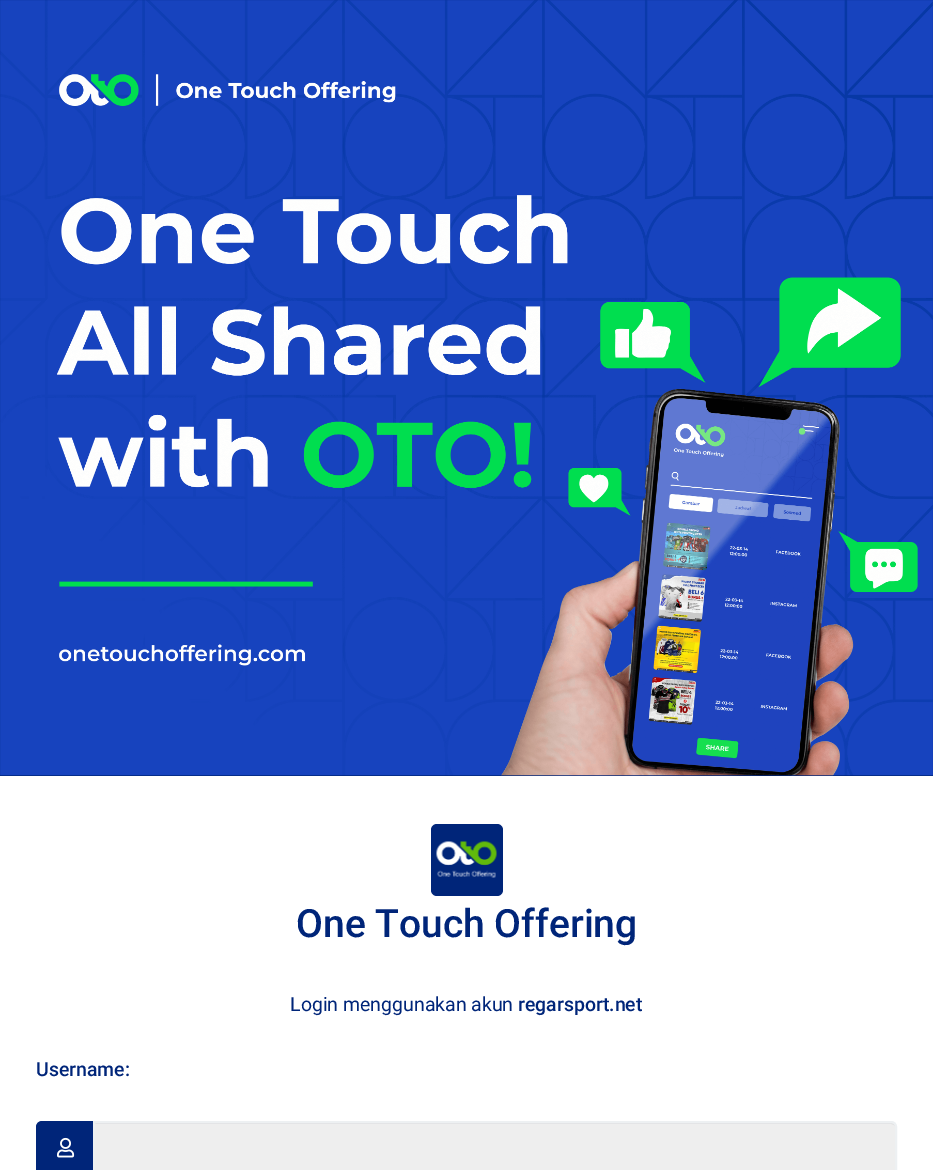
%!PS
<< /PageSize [933 1170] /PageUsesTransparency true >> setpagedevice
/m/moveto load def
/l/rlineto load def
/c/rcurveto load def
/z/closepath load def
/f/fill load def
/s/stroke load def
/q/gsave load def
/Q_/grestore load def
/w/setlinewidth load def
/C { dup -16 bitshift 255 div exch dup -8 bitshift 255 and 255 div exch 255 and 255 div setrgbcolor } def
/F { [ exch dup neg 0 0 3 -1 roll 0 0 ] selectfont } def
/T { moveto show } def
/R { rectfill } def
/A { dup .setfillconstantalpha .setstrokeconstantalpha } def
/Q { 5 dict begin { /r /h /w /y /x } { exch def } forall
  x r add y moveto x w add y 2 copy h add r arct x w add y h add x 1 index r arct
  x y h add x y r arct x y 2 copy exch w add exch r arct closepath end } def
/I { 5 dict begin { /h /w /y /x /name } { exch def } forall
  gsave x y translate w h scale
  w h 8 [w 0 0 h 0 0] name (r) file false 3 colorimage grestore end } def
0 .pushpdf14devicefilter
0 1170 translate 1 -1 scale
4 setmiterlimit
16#002579 C
0 0 933 1170 R
(1.rgb) 0 0 933 776 I
16#FFFFFF C
0 776 933 394 R
16#002579 C
431 824 72 72 6 Q f
(2.rgb) 436 841 61 37 I
/Roboto-Medium 39 F
(One Touch Offering) 296 937 T
/Roboto-Regular 19.5 F
(Login menggunakan akun) 290 1011 T
/Roboto-Medium 19.5 F
(regarsport.net) 518 1011 T
(Username:) 36 1076 T
42 1122.5 m 51.5 0 l 0 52 l -51.5 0 l -2.5 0 -4.5 -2 -4.5 -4.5 c 0 -43 l 0 -2.5 2 -4.5 4.5 -4.5 c z q f Q_
3 w
s
(3.rgb) 57 1137 18 21 I
16#EEEEEE C
95 1122 m 796 0 l 3 0 5 2 5 5 c 0 43 l 0 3 -2 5 -5 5 c -796 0 l z f
0.07 A
16#272C33 C
95 1122 m 0 2 l 796 0 l 2 0 5 2 5 4 c 0 -3 -2 -6 -5 -6 c z f
1 A
16#EDF0F2 C
2 w
94 1122 m 797 0 l 3 0 5 2 5 5 c 0 43 l 0 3 -2 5 -5 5 c -797 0 l z s
.poppdf14devicefilter showpage
